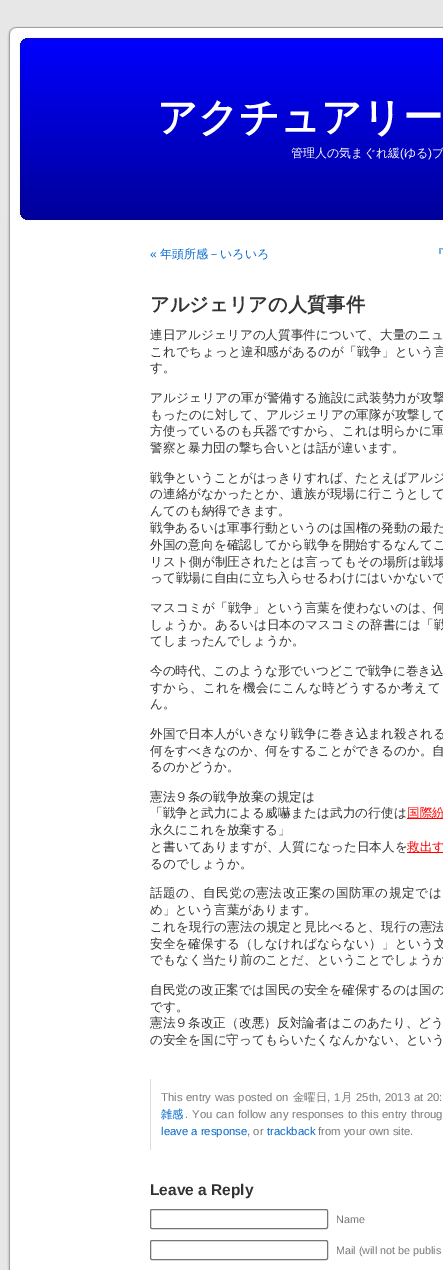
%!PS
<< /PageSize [443 1270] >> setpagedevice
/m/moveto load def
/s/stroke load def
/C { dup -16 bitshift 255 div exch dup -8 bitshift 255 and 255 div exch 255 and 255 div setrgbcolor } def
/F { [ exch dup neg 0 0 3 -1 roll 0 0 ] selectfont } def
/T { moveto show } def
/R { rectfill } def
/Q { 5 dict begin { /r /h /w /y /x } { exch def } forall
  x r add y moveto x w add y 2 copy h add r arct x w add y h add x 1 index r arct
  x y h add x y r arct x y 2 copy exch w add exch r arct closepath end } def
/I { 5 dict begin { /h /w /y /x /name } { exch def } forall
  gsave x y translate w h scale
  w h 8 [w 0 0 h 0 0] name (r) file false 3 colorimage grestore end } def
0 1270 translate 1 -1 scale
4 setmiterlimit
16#E7E7E7 C
0 0 443 1270 R
(1.rgb) 7 220 436 1050 I
(2.rgb) 7 20 436 200 I
/WenQuanYiZenHei-Bold 40 F
16#FFFFFF C
(アクチュアリー) 157 131 T
/WenQuanYiZenHei-Medium 12 F
(管理人の気まぐれ緩) 291 157 T
/LiberationSans-Regular 12 F
(\() 400 157 T
/WenQuanYiZenHei-Medium 12 F
(ゆる) 404 157 T
/LiberationSans-Regular 12 F
(\)) 428 157 T
/WenQuanYiZenHei-Medium 12 F
(ブ) 432 157 T
/LiberationSans-Regular 12 F
16#0066CC C
(«) 150 258 T
/WenQuanYiZenHei-Medium 12 F
(年頭所感－いろいろ) 160 258 T
(『) 432 258 T
/WenQuanYiZenHei-Bold 19.25 F
16#333333 C
(アルジェリアの人質事件) 150 311 T
/WenQuanYiZenHei-Medium 12.6 F
(連日アルジェリアの人質事件について、大量のニュ) 150 339 T
150 356 m .1 0 (これでちょっと違和感があるのが「戦争」という言) ashow
(す。) 150 372 T
150 402 m .1 0 (アルジェリアの軍が警備する施設に武装勢力が攻撃) ashow
150 419 m .05 0 (もったのに対して、アルジェリアの軍隊が攻撃して) ashow
(方使っているのも兵器ですから、これは明らかに軍) 150 435 T
(警察と暴力団の撃ち合いとは話が違います。) 150 452 T
(戦争ということがはっきりすれば、たとえばアルジ) 150 482 T
150 498 m .05 0 (の連絡がなかったとか、遺族が現場に行こうとして) ashow
(んてのも納得できます。) 150 515 T
150 532 m .1 0 (戦争あるいは軍事行動というのは国権の発動の最た) ashow
150 549 m .1 0 (外国の意向を確認してから戦争を開始するなんてこ) ashow
150 566 m .1 0 (リスト側が制圧されたとは言ってもその場所は戦場) ashow
(って戦場に自由に立ち入らせるわけにはいかないで) 150 582 T
150 612 m .1 0 (マスコミが「戦争」という言葉を使わないのは、何) ashow
150 629 m .1 0 (しょうか。あるいは日本のマスコミの辞書には「戦) ashow
(てしまったんでしょうか。) 150 645 T
(今の時代、このような形でいつどこで戦争に巻き込) 150 675 T
150 692 m .4 0 (すから、これを機会にこんな時どうするか考えて) ashow
(ん。) 150 708 T
150 738 m .1 0 (外国で日本人がいきなり戦争に巻き込まれ殺される) ashow
(何をすべきなのか、何をすることができるのか。自) 150 755 T
(るのかどうか。) 150 771 T
(憲法９条の戦争放棄の規定は) 150 801 T
150 817 m .1 0 (「戦争と武力による威嚇または武力の行使は) ashow
16#FF0000 C
407 818 36 1 R
407 817 m .1 0 (国際紛) ashow
16#333333 C
(永久にこれを放棄する」) 150 834 T
150 851 m .1 0 (と書いてありますが、人質になった日本人を) ashow
16#FF0000 C
407 852 36 1 R
(救出す) 407 851 T
16#333333 C
(るのでしょうか。) 150 868 T
150 897 m .6 0 (話題の、自民党の憲法改正案の国防軍の規定では) ashow
(め」という言葉があります。) 150 914 T
150 931 m .1 0 (これを現行の憲法の規定と見比べると、現行の憲法) ashow
150 948 m .1 0 (安全を確保する（しなければならない）」という文) ashow
(でもなく当たり前のことだ、ということでしょうか) 150 964 T
150 994 m .1 0 (自民党の改正案では国民の安全を確保するのは国の) ashow
(です。) 150 1011 T
150 1027 m .1 0 (憲法９条改正（改悪）反対論者はこのあたり、どう) ashow
(の安全を国に守ってもらいたくなんかない、という) 150 1044 T
16#DDDDDD C
150 1079 1 71 R
/LiberationSans-Regular 11.3 F
16#777777 C
161 1101 m .5 0 32 (This entry was posted on) widthshow
/WenQuanYiZenHei-Medium 11.3 F
(金曜日) 293 1101 T
/LiberationSans-Regular 11.3 F
327 1101 m .5 0 32 (, 1) widthshow
/WenQuanYiZenHei-Medium 11.3 F
(月) 341 1101 T
/LiberationSans-Regular 11.3 F
356 1101 m .5 0 32 (25th, 2013 at 20:) widthshow
/WenQuanYiZenHei-Medium 11.3 F
16#0066CC C
(雑感) 161 1118 T
/LiberationSans-Regular 11.3 F
16#777777 C
(.) 185 1118 T
192 1118 m .5 0 32 (You can follow any responses to this entry throug) widthshow
16#0066CC C
(leave a response) 161 1135 T
16#777777 C
(, or) 247 1135 T
16#0066CC C
(trackback) 267 1135 T
16#777777 C
(from your own site.) 318 1135 T
/LiberationSans-Bold 15.5 F
16#333333 C
(Leave a Reply) 150 1195 T
16#767676 C
150.5 1209.5 177 19 1.5 Q s
/LiberationSans-Regular 10.75 F
16#777777 C
(Name) 336 1223 T
16#767676 C
150.5 1240.5 177 19 1.5 Q s
16#777777 C
(Mail \(will not be publis) 336 1254 T
showpage
